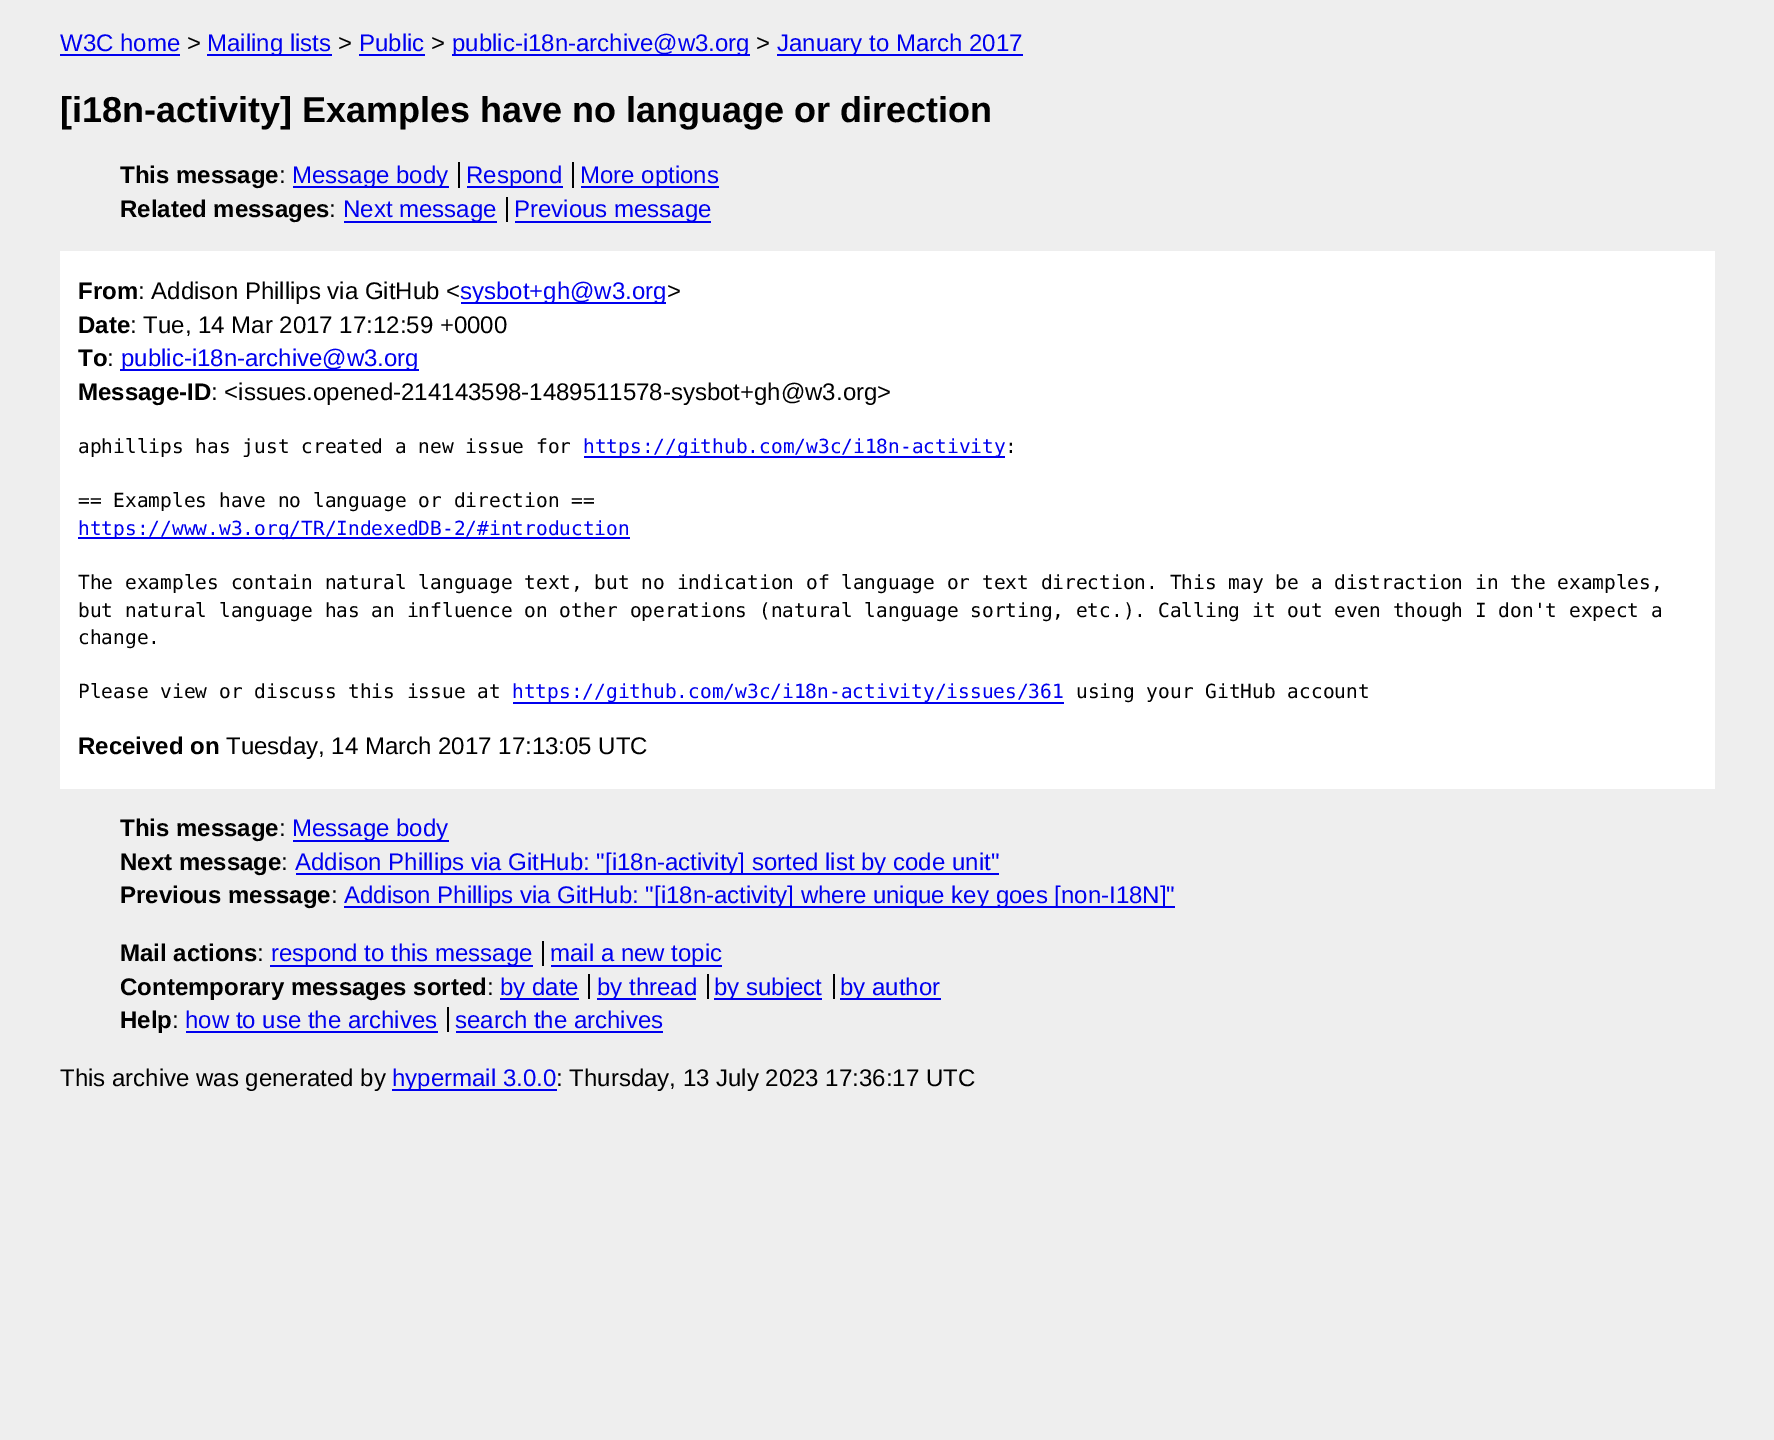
%!PS
<< /PageSize [1774 1440] >> setpagedevice
/C { dup -16 bitshift 255 div exch dup -8 bitshift 255 and 255 div exch 255 and 255 div setrgbcolor } def
/F { [ exch dup neg 0 0 3 -1 roll 0 0 ] selectfont } def
/T { moveto show } def
/R { rectfill } def
0 1440 translate 1 -1 scale
4 setmiterlimit
16#EEEEEE C
0 0 1774 1440 R
/LiberationSans-Regular 24 F
16#0000EE C
(W3C home) 60 51 T
60 54 120 2 R
16#000000 C
(>) 187 51 T
16#0000EE C
207 54 125 2 R
(Mailing lists) 207 51 T
16#000000 C
(>) 338 51 T
16#0000EE C
(Public) 359 51 T
359 54 66 2 R
16#000000 C
(>) 431 51 T
16#0000EE C
452 54 298 2 R
(public-i18n-archive@w3.org) 452 51 T
16#000000 C
(>) 756 51 T
16#0000EE C
777 54 246 2 R
(January to March 2017) 777 51 T
/LiberationSans-Bold 36 F
16#000000 C
([i18n-activity] Examples have no language or direction) 60 122 T
/LiberationSans-Bold 24 F
(This message) 120 183 T
/LiberationSans-Regular 24 F
(:) 279 183 T
16#0000EE C
293 186 156 2 R
(Message body) 292 183 T
467 186 96 2 R
(Respond) 466 183 T
16#000000 C
458 162 2 26 R
16#0000EE C
581 186 138 2 R
(More options) 580 183 T
16#000000 C
572 162 2 26 R
/LiberationSans-Bold 24 F
(Related messages) 120 217 T
/LiberationSans-Regular 24 F
(:) 329 217 T
16#0000EE C
344 221 153 2 R
(Next message) 343 217 T
515 221 196 2 R
(Previous message) 514 217 T
16#000000 C
506 197 2 25 R
16#FFFFFF C
60 251 1655 538 R
/LiberationSans-Bold 24 F
16#000000 C
(From) 78 299 T
/LiberationSans-Regular 24 F
(: Addison Phillips via GitHub <) 138 299 T
16#0000EE C
461 302 205 2 R
(sysbot+gh@w3.org) 460 299 T
16#000000 C
(>) 667 299 T
/LiberationSans-Bold 24 F
(Date) 78 333 T
/LiberationSans-Regular 24 F
(: Tue, 14 Mar 2017 17:12:59 +0000) 130 333 T
/LiberationSans-Bold 24 F
(To) 78 366 T
/LiberationSans-Regular 24 F
(:) 107 366 T
16#0000EE C
120 369 299 2 R
(public-i18n-archive@w3.org) 121 366 T
/LiberationSans-Bold 24 F
16#000000 C
(Message-ID) 78 400 T
/LiberationSans-Regular 24 F
(: <issues.opened-214143598-1489511578-sysbot+gh@w3.org>) 211 400 T
/DejaVuSansMono-Regular 19.5 F
(aphillips has just created a new issue for) 78 453 T
16#0000EE C
584 456 421 2 R
(https://github.com/w3c/i18n-activity) 583 453 T
16#000000 C
(:) 1005 453 T
(== Examples have no language or direction ==) 78 507 T
16#0000EE C
78 537 552 2 R
(https://www.w3.org/TR/IndexedDB-2/#introduction) 78 535 T
16#000000 C
(The examples contain natural language text, but no indication of language or text direction. This may be a distraction in the examples,) 78 589 T
(but natural language has an influence on other operations \(natural language sorting, etc.\). Calling it out even though I don't expect a) 78 617 T
(change.) 78 644 T
(Please view or discuss this issue at) 78 698 T
16#0000EE C
513 702 551 2 R
(https://github.com/w3c/i18n-activity/issues/361) 512 698 T
16#000000 C
(using your GitHub account) 1076 698 T
/LiberationSans-Bold 24 F
(Received on) 78 754 T
/LiberationSans-Regular 24 F
(Tuesday, 14 March 2017 17:13:05 UTC) 226 754 T
/LiberationSans-Bold 24 F
(This message) 120 836 T
/LiberationSans-Regular 24 F
(:) 279 836 T
16#0000EE C
293 840 156 2 R
(Message body) 292 836 T
/LiberationSans-Bold 24 F
16#000000 C
(Next message) 120 870 T
/LiberationSans-Regular 24 F
(:) 281 870 T
16#0000EE C
296 873 703 2 R
(Addison Phillips via GitHub: "[i18n-activity] sorted list by code unit") 295 870 T
/LiberationSans-Bold 24 F
16#000000 C
(Previous message) 120 903 T
/LiberationSans-Regular 24 F
(:) 331 903 T
16#0000EE C
344 906 831 2 R
(Addison Phillips via GitHub: "[i18n-activity] where unique key goes [non-I18N]") 344 903 T
/LiberationSans-Bold 24 F
16#000000 C
(Mail actions) 120 961 T
/LiberationSans-Regular 24 F
(:) 257 961 T
16#0000EE C
270 965 263 2 R
(respond to this message) 271 961 T
551 965 171 2 R
(mail a new topic) 550 961 T
16#000000 C
542 941 2 25 R
/LiberationSans-Bold 24 F
(Contemporary messages sorted) 120 995 T
/LiberationSans-Regular 24 F
(:) 487 995 T
16#0000EE C
500 998 79 2 R
(by date) 500 995 T
597 998 99 2 R
(by thread) 597 995 T
16#000000 C
588 974 2 25 R
16#0000EE C
714 998 108 2 R
(by subject) 714 995 T
16#000000 C
707 974 2 25 R
16#0000EE C
840 998 101 2 R
(by author) 840 995 T
16#000000 C
833 974 2 25 R
/LiberationSans-Bold 24 F
(Help) 120 1028 T
/LiberationSans-Regular 24 F
(:) 172 1028 T
16#0000EE C
(how to use the archives) 185 1028 T
186 1031 252 2 R
(search the archives) 455 1028 T
16#000000 C
447 1007 2 25 R
16#0000EE C
456 1031 207 2 R
16#000000 C
(This archive was generated by) 60 1086 T
16#0000EE C
392 1089 165 2 R
(hypermail 3.0.0) 392 1086 T
16#000000 C
(: Thursday, 13 July 2023 17:36:17 UTC) 556 1086 T
showpage
